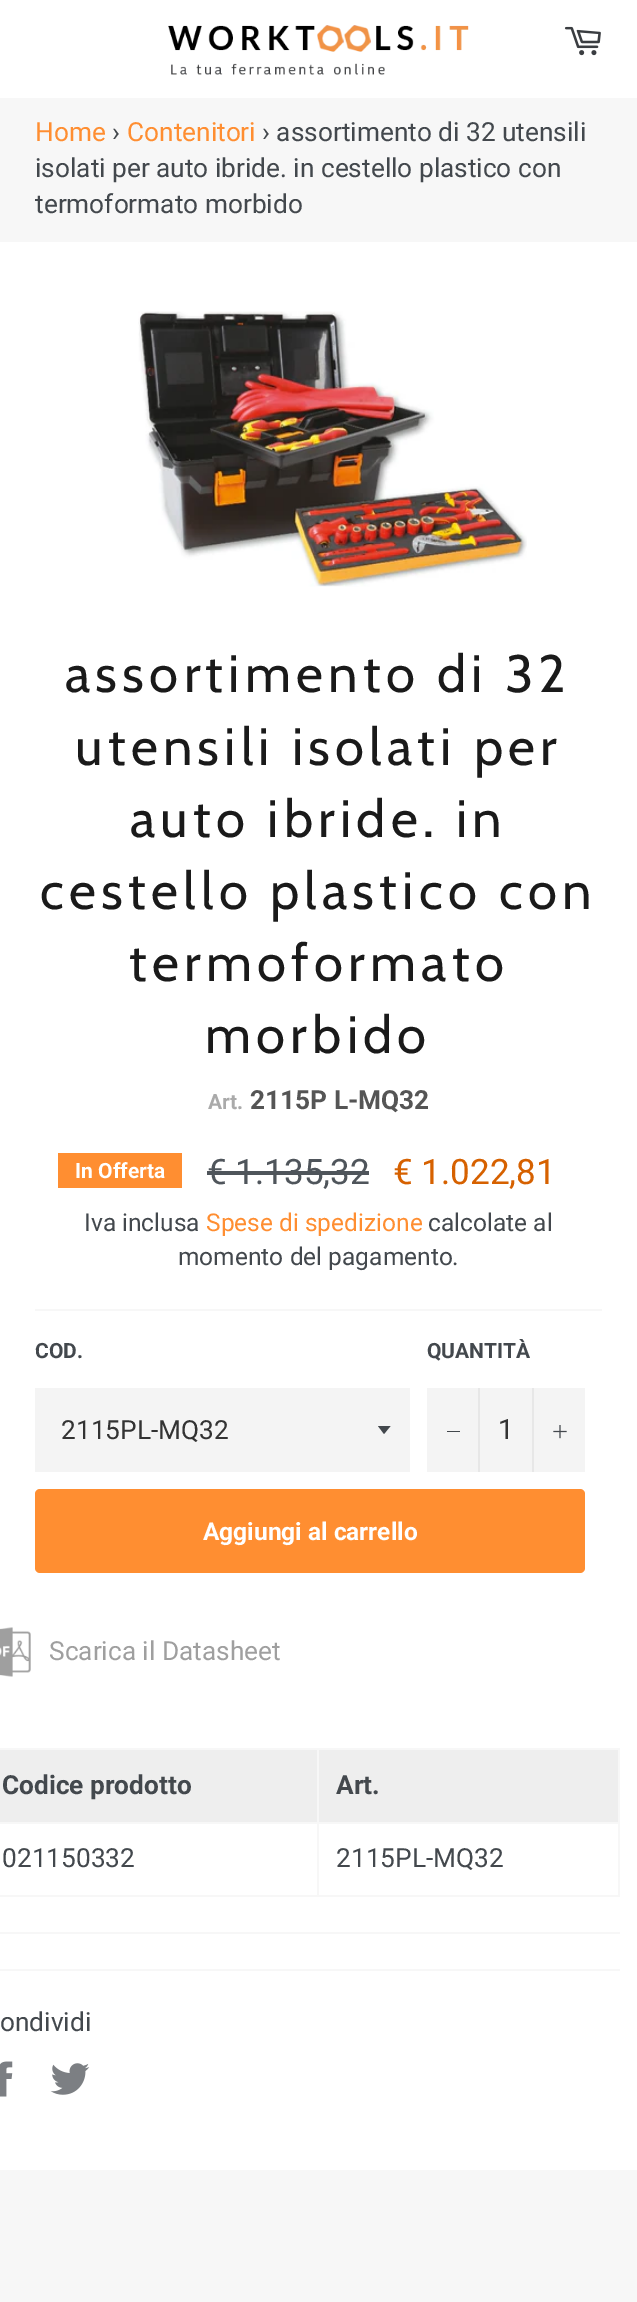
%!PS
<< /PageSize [637 2302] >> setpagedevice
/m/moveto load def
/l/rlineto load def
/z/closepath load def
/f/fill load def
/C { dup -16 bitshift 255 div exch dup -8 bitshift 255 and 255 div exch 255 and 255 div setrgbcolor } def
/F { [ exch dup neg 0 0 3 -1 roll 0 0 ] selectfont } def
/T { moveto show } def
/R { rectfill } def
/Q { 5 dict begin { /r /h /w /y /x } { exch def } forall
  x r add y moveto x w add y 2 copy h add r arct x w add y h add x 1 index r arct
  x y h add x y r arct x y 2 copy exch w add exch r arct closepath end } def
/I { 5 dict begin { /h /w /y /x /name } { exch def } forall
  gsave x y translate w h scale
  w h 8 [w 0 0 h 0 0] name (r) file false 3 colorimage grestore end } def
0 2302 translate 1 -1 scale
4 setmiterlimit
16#F7F7F7 C
0 0 637 2302 R
16#FFFFFF C
0 0 637 98 R
(1.rgb) 168 25 301 50 I
(2.rgb) 564 26 37 30 I
/Roboto-Regular 26.25 F
16#FF8E31 C
(Home) 35 141 T
16#43484D C
(›) 112 141 T
16#FF8E31 C
(Contenitori) 127 141 T
16#43484D C
(› assortimento di 32 utensili) 262 141 T
(isolati per auto ibride. in cestello plastico con) 35 177 T
(termoformato morbido) 35 213 T
16#FFFFFF C
0 242 637 1928 R
(3.rgb) 138 311 389 276 I
/Cabin-Regular 52.5 F
16#1A1A1A C
65 692 m 5.25 0 (assortimento di 32) ashow
75 765 m 5.25 0 (utensili isolati per) ashow
130 837 m 5.25 0 (auto ibride. in) ashow
40 909 m 5.25 0 (cestello plastico con) ashow
129 981 m 5.25 0 (termoformato) ashow
205 1053 m 5.25 0 (morbido) ashow
/Roboto-Bold 21 F
16#AAAAAA C
(Art.) 208 1109 T
/Roboto-Bold 26.25 F
16#555555 C
(2115P L-MQ32) 250 1109 T
16#FF8E31 C
58 1153 124 35 R
/Roboto-Bold 21 F
16#FFFFFF C
(In Offerta) 75 1178 T
/Roboto-Regular 35 F
16#4F555B C
(€ 1.135,32) 207 1184 T
207 1171 162 4 R
16#D66100 C
(€ 1.022,81) 393 1184 T
/Roboto-Regular 24.5 F
16#43484D C
(Iva inclusa) 84 1231 T
16#FF8E31 C
(Spese di spedizione) 206 1231 T
16#43484D C
(calcolate al) 428 1231 T
(momento del pagamento.) 178 1265 T
16#F7F7F7 C
35 1309 567 2 R
/Roboto-Bold 21 F
16#43484D C
(COD.) 35 1358 T
16#F4F4F4 C
35 1388 375 84 R
16#43484D C
378 1426 m 6 8 l 6.5 -8 l z f
/Roboto-Regular 26.25 F
16#333333 C
(2115PL-MQ32) 61 1439 T
/Roboto-Bold 21 F
16#43484D C
(QUANTITÀ) 427 1358 T
16#F4F4F4 C
427 1388 158 84 R
16#E7E7E7 C
478 1388 2 84 R
16#43484D C
447 1431 13 1 R
/Roboto-Regular 28 F
16#333333 C
(1) 498 1439 T
16#E7E7E7 C
532 1388 2 84 R
(4.rgb) 553 1425 14 14 I
16#FF8E31 C
35 1489 550 84 5 Q f
/Roboto-Bold 24.5 F
16#FFFFFF C
(Aggiungi al carrello) 203 1540 T
(5.rgb) 0 1627 31 50 I
/Roboto-Regular 26.25 F
16#9F9F9F C
(Scarica il Datasheet) 49 1660 T
16#EEEEEE C
0 1750 317 72 R
16#F7F7F7 C
317 1748 303 2 R
317 1822 303 2 R
618 1822 2 75 R
317 1895 303 2 R
317 1822 2 75 R
0 1822 319 2 R
317 1748 2 76 R
0 1748 319 2 R
/Roboto-Bold 26.25 F
16#43484D C
(Codice prodotto) 2 1794 T
16#EEEEEE C
319 1750 299 72 R
16#F7F7F7 C
618 1748 2 76 R
16#43484D C
(Art.) 336 1794 T
16#F7F7F7 C
0 1895 319 2 R
/Roboto-Regular 26.25 F
16#43484D C
(021150332) 2 1867 T
(2115PL-MQ32) 336 1867 T
16#F7F7F7 C
0 1932 620 2 R
0 1969 620 2 R
16#43484D C
(ondividi) 0 2031 T
(6.rgb) 0 2061 13 36 I
(7.rgb) 50 2063 40 32 I
showpage
